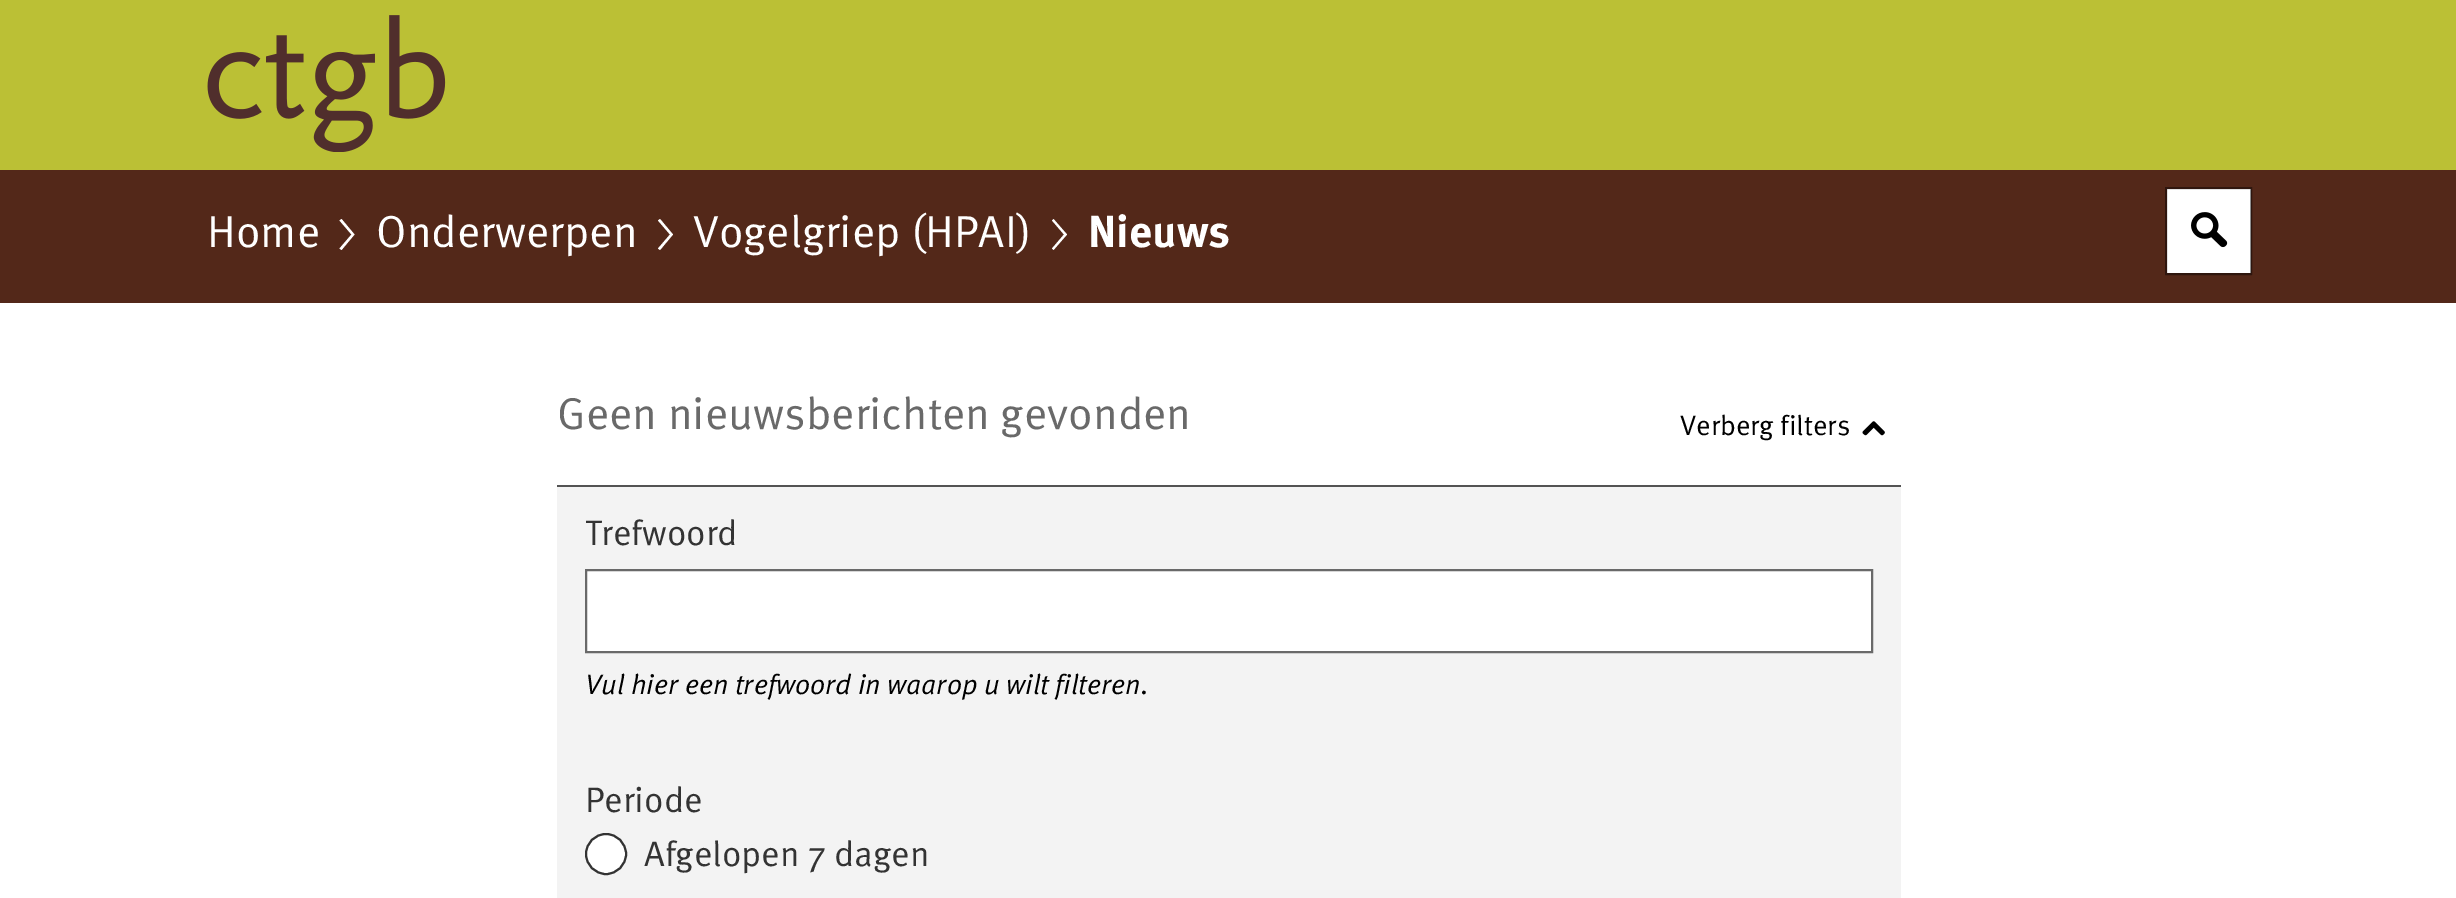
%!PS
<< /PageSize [2456 898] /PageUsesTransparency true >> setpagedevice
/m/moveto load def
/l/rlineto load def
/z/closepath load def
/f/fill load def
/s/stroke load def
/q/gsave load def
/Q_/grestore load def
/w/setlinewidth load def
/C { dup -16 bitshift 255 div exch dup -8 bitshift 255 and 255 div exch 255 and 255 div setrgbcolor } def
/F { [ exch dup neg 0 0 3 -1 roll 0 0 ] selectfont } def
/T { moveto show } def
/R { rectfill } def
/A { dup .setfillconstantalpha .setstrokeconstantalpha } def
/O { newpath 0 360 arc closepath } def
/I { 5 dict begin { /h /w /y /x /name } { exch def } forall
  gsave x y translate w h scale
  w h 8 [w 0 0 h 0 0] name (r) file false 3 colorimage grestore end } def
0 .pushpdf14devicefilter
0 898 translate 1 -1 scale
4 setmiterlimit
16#FFFFFF C
0 0 2456 898 R
16#BBC035 C
0 0 2456 170 R
(1.rgb) 207 15 239 137 I
16#532819 C
0 170 2456 133 R
/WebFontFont-Regular 44.8 F
16#FFFFFF C
(Home) 207 247 T
341.5 250 m -2 -1.5 l 12 -14 l -12 -14 l 2 -1.5 l 13 15.5 l z f
(Onderwerpen) 376 247 T
660 250 m -2 -1.5 l 12 -14 l -12 -14 l 2 -1.5 l 13 15.5 l z f
(Vogelgriep \(HPAI\)) 693 247 T
1053.5 250 m -1.5 -1.5 l 12 -14 l -12 -14 l 1.5 -1.5 l 13.5 15.5 l z f
/WebFontFont-Bold 44.8 F
(Nieuws) 1088 247 T
2167 189 84 84 R
0.44 A
16#000000 C
2 w
2166 188 85 86 rectstroke
1 A
(2.rgb) 2191 212 37 36 I
16#535353 C
557 485 1344 2 R
/WebFontFont-Regular 44.8 F
16#696969 C
(Geen nieuwsberichten gevonden) 557 429 T
/WebFontFont-Regular 28 F
16#000000 C
(Verberg filters) 1680 435 T
(3.rgb) 1862 421 23 15 I
16#F3F3F3 C
557 487 1344 411 R
/WebFontFont-Regular 35.5 F
16#333333 C
(Trefwoord) 585 545 T
16#FFFFFF C
586 570 m 1286 0 l 0 82 l -1286 0 l z q f Q_
16#696969 C
s
/WebFontFont-Italic 28 F
16#000000 C
(Vul hier een trefwoord in waarop u wilt filteren.) 585 694 T
/WebFontFont-Regular 35.5 F
16#333333 C
(Periode) 585 812 T
16#FFFFFF C
606 854 20 O q f Q_
16#333333 C
s
(Afgelopen 7 dagen) 644 866 T
.poppdf14devicefilter showpage
